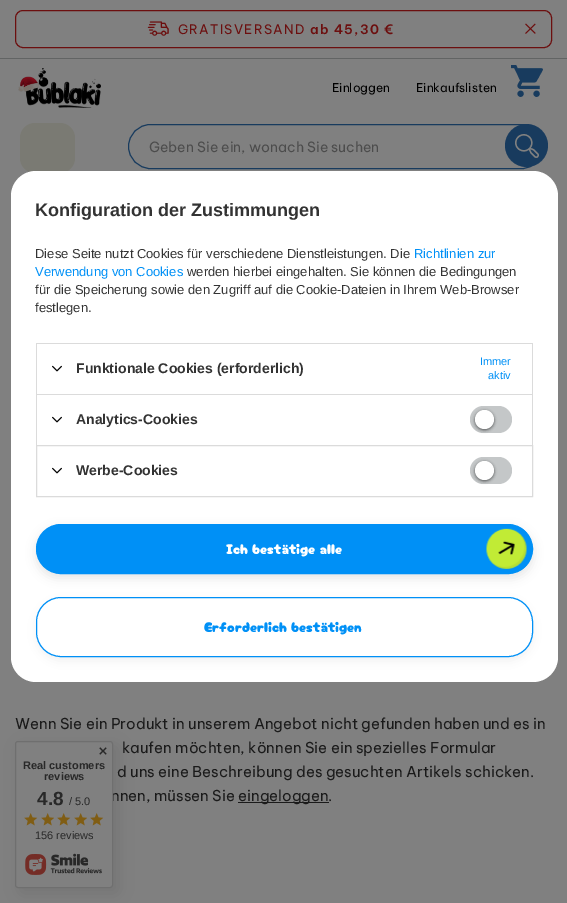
%!PS
<< /PageSize [567 903] /PageUsesTransparency true >> setpagedevice
/m/moveto load def
/f/fill load def
/s/stroke load def
/q/gsave load def
/Q_/grestore load def
/C { dup -16 bitshift 255 div exch dup -8 bitshift 255 and 255 div exch 255 and 255 div setrgbcolor } def
/F { [ exch dup neg 0 0 3 -1 roll 0 0 ] selectfont } def
/T { moveto show } def
/R { rectfill } def
/A { dup .setfillconstantalpha .setstrokeconstantalpha } def
/O { newpath 0 360 arc closepath } def
/Q { 5 dict begin { /r /h /w /y /x } { exch def } forall
  x r add y moveto x w add y 2 copy h add r arct x w add y h add x 1 index r arct
  x y h add x y r arct x y 2 copy exch w add exch r arct closepath end } def
/S { 12 dict begin { /a /b /q /h /w /y /x } { exch def } forall gsave /was 0 def
  9 -2 -9 { dup b mul 4 div /e exch def 1 sub .425 mul 2.718 exch exp 1 add a .99 .min exch div /now exch def
    1 1 now sub 1 was sub div sub A /was now def
    w h .min e 2 mul add 0 gt { x e sub y e sub w e 2 mul add h e 2 mul add
      q e add b .6 mul add w h .min 2 div e add .min 0 .max Q fill } if } for grestore end } def
/I { 5 dict begin { /h /w /y /x /name } { exch def } forall
  gsave x y translate w h scale
  w h 8 [w 0 0 h 0 0] name (r) file false 3 colorimage grestore end } def
0 .pushpdf14devicefilter
0 903 translate 1 -1 scale
4 setmiterlimit
16#808080 C
0 0 567 903 R
16#6C0F0F C
15.5 10.5 536 37 7.5 Q s
(1.rgb) 147 21 22 15 I
/BeVietnamPro-Regular 13 F
178 34 m 1.25 0 (GRATISVERSAND) ashow
/BeVietnamPro-SemiBold 13 F
310 34 m 1.25 0 (ab 45,30 €) ashow
(2.rgb) 525 23 11 11 I
16#626464 C
0 58 567 1 R
(3.rgb) 18 68 83 40 I
/BeVietnamPro-Regular 12 F
16#000000 C
(Einloggen) 332 92 T
(Einkaufslisten) 416 92 T
(4.rgb) 511 65 32 32 I
16#7A7A73 C
20 123 55 50 15 Q f
16#183B5E C
128.5 124.5 415 44 22 Q s
/BeVietnamPro-Regular 14 F
16#4C4C4C C
(Geben Sie ein, wonach Sie suchen) 149 152 T
16#183B5E C
526.5 145.5 21.5 O f
(5.rgb) 515 134 24 24 I
/BeVietnamPro-Regular 15 F
16#1A1A1A C
(Wenn Sie ein Produkt in unserem Angebot nicht gefunden haben und es in) 15 729 T
(kaufen möchten, können Sie ein spezielles Formular) 122 753 T
(d uns eine Beschreibung des gesuchten Artikels schicken.) 117 777 T
(nnen, müssen Sie) 111 801 T
238 802 91 1 R
(eingeloggen.) 238 801 T
16#FFFFFF C
11 171 547 511 25 Q f
/LiberationSans-Bold 18 F
16#333333 C
(Konfiguration der Zustimmungen) 35 216 T
/LiberationSans-Regular 13 F
(Diese Seite nutzt Cookies für verschiedene Dienstleistungen. Die) 35 258 T
16#0090F6 C
(Richtlinien zur) 414 258 T
(Verwendung von Cookies) 35 276 T
16#333333 C
(werden hierbei eingehalten. Sie können die Bedingungen) 187 276 T
(für die Speicherung sowie den Zugriff auf die Cookie-Dateien in Ihrem Web-Browser) 35 294 T
(festlegen.) 35 312 T
16#DBDBDB C
36 343 497 1 R
532 343 1 51 R
36 343 1 51 R
(6.rgb) 52 365 10 7 I
/LiberationSans-Bold 14 F
16#333333 C
(Funktionale Cookies \(erforderlich\)) 76 373 T
/LiberationSans-Regular 11 F
16#0090F6 C
(Immer) 480 365 T
(aktiv) 488 379 T
16#DBDBDB C
36 394 497 1 R
532 394 1 51 R
36 394 1 51 R
(6.rgb) 52 416 10 7 I
/LiberationSans-Bold 14 F
16#333333 C
(Analytics-Cookies) 76 424 T
16#C4C7C8 C
470 406 42 27 13.5 Q f
16#000000 C
475 411 19 19 9.5 1.5 .56 S
16#FFFFFF C
484.5 419.5 9.5 O f
16#DBDBDB C
36.5 445.5 496 51 rectstroke
(6.rgb) 52 467 10 7 I
16#333333 C
(Werbe-Cookies) 76 475 T
16#C4C7C8 C
470 457 42 27 13.5 Q f
16#000000 C
475 462 19 19 9.5 1.5 .56 S
16#FFFFFF C
484.5 470.5 9.5 O f
16#000000 C
36 528 497 50 25 5 .1 S
16#0090F6 C
36.5 524.5 496 49 24.5 Q q f Q_
s
/CherryBombOne-Regular 14 F
16#FFFFFF C
(Ich bestätige alle) 226 554 T
(7.rgb) 486 528 41 41 I
16#000000 C
36 601 497 60 25 5 .06 S
16#FFFFFF C
36.5 597.5 496 59 24.5 Q q f Q_
16#0090F6 C
s
(Erforderlich bestätigen) 204 632 T
16#000000 C
20 746 98 147 3 7.5 .1 S
16#808080 C
15.5 741.5 97 146 2.5 Q q f Q_
16#6F6F6F C
s
(8.rgb) 99 747 8 8 I
/LiberationSans-Bold 11 F
16#282828 C
(Real customers) 23 769 T
(reviews) 44 780 T
/LiberationSans-Bold 19 F
(4.8) 37 805 T
/LiberationSans-Regular 11 F
(/ 5.0) 69 805 T
(9.rgb) 24 813 14 13 I
(10.rgb) 41 813 13 13 I
(9.rgb) 57 813 14 13 I
(10.rgb) 74 813 13 13 I
(9.rgb) 90 813 14 13 I
(156 reviews) 35 839 T
(11.rgb) 25 853 77 22 I
.poppdf14devicefilter showpage
